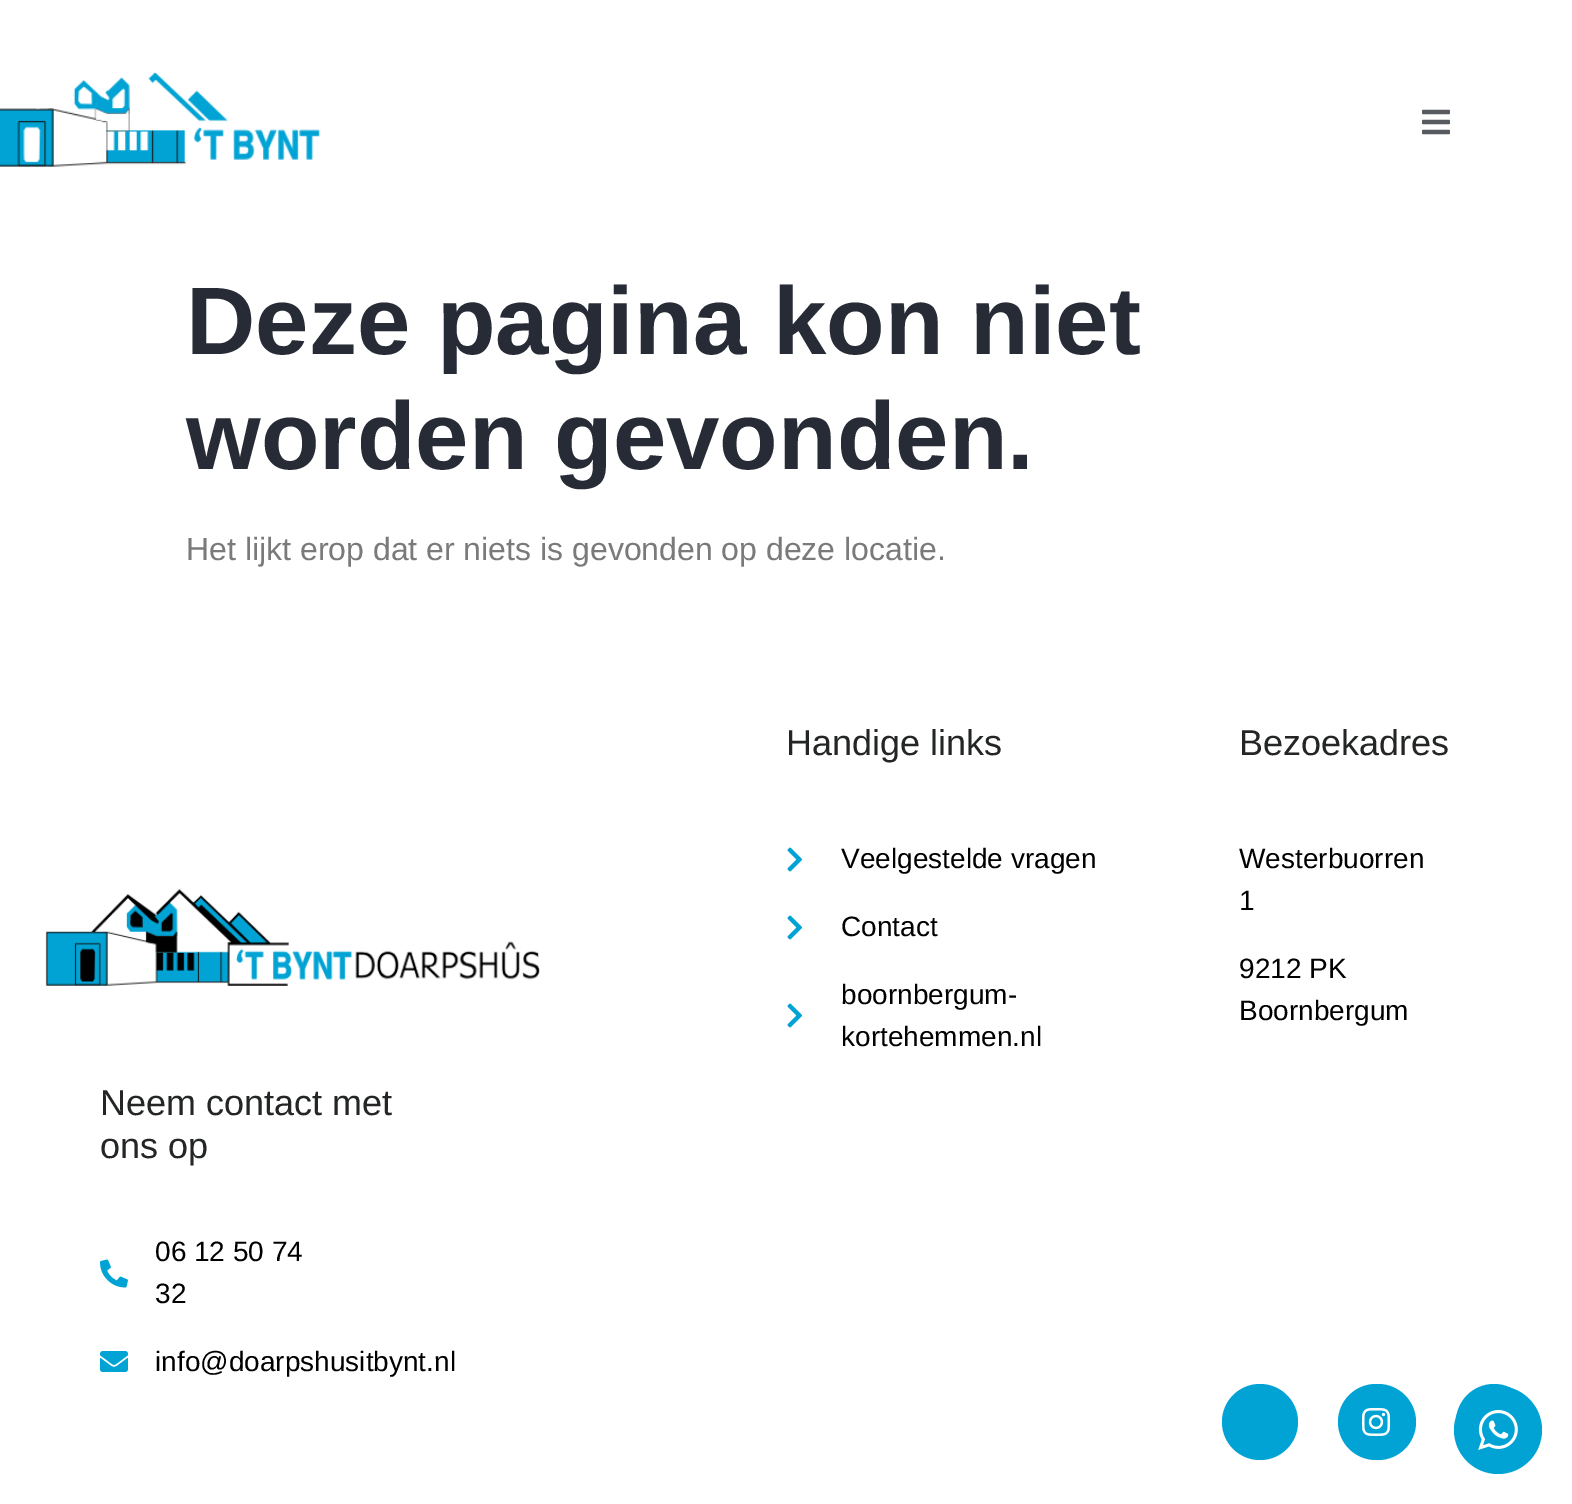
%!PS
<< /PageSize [1572 1504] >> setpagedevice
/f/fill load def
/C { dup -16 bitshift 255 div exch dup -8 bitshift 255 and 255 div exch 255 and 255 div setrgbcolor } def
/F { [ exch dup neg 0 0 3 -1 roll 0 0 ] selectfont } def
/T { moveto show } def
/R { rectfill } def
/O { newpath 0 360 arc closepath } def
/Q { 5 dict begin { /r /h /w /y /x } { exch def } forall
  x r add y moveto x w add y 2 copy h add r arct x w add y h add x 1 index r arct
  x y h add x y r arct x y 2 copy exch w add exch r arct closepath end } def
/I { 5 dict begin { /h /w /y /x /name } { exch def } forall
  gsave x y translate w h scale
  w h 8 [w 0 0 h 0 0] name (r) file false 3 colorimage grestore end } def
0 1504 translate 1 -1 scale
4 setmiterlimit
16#FFFFFF C
0 0 1572 1504 R
(1.rgb) 0 71 321 96 I
(2.rgb) 1422 109 28 26 I
/LiberationSans-Bold 96 F
16#272B36 C
(Deze pagina kon niet) 186 354 T
(worden gevonden.) 186 469 T
/LiberationSans-Regular 32 F
16#7A7A7A C
(Het lijkt erop dat er niets is gevonden op deze locatie.) 186 560 T
(3.rgb) 45 889 495 97 I
/LiberationSans-Regular 36 F
16#242526 C
(Handige links) 786 755 T
(4.rgb) 787 847 15 25 I
/LiberationSans-Regular 28 F
16#000000 C
(Veelgestelde vragen) 841 868 T
(4.rgb) 787 915 15 25 I
(Contact) 841 936 T
(4.rgb) 787 1003 15 25 I
(boornbergum-) 841 1004 T
(kortehemmen.nl) 841 1046 T
/LiberationSans-Regular 36 F
16#242526 C
(Bezoekadres) 1239 755 T
/LiberationSans-Regular 28 F
16#000000 C
(Westerbuorren) 1239 868 T
(1) 1239 910 T
(9212 PK) 1239 978 T
(Boornbergum) 1239 1020 T
/LiberationSans-Regular 36 F
16#242526 C
(Neem contact met) 100 1115 T
(ons op) 100 1158 T
(5.rgb) 100 1259 28 29 I
/LiberationSans-Regular 28 F
16#000000 C
(06 12 50 74) 155 1261 T
(32) 155 1303 T
(6.rgb) 100 1351 28 21 I
(info@doarpshusitbynt.nl) 155 1371 T
16#00A3D4 C
1260 1422 38 O f
1338 1384 78 76 38 Q f
(7.rgb) 1362 1407 29 29 I
1494 1422 38 O f
1498 1430 44 O f
(8.rgb) 1478 1410 40 40 I
showpage
